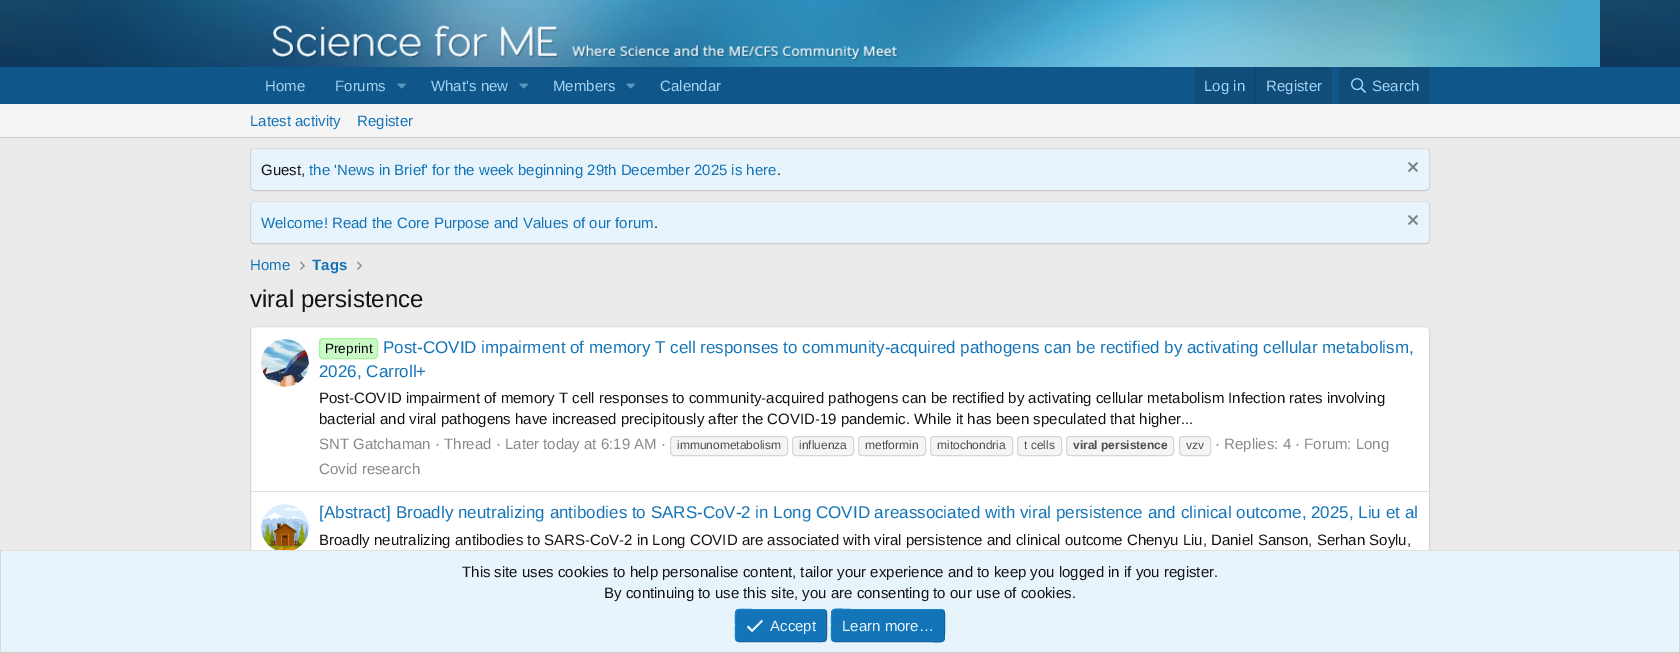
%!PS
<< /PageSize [1680 653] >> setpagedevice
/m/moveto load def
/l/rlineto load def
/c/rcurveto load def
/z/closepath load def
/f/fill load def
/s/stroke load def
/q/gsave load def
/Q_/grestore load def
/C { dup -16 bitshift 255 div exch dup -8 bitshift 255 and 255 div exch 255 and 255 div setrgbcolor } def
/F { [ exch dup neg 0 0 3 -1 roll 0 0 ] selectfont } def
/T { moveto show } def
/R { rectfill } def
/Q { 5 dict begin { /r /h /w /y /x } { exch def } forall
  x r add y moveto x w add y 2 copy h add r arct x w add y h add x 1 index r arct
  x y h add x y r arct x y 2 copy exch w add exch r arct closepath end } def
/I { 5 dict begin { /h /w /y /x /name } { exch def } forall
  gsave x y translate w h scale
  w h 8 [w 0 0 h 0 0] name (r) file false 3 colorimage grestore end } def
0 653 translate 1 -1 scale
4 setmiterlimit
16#EBEBEB C
0 0 1680 653 R
(1.rgb) 0 0 1680 67 I
(2.rgb) 272 25 627 36 I
16#0F578A C
0 67 1680 37 R
/LiberationSans-Regular 15 F
16#A3D4F5 C
(Home) 265 91 T
(Forums) 335 91 T
(3.rgb) 397 83 9 6 I
(What's new) 431 91 T
(3.rgb) 519 83 9 6 I
(Members) 553 91 T
(3.rgb) 626 83 9 6 I
(Calendar) 660 91 T
16#104D78 C
1198 67 m 130 0 l 2 0 4 2 4 4 c 0 33 l -138 0 l 0 -33 l 0 -2 2 -4 4 -4 c z f
16#A3D4F5 C
(Log in) 1204 91 T
16#114469 C
1255 67 1 37 R
16#A3D4F5 C
(Register) 1266 91 T
16#104D78 C
1343 67 m 83 0 l 2 0 4 2 4 4 c 0 33 l -91 0 l 0 -33 l 0 -2 2 -4 4 -4 c z f
(4.rgb) 1351 78 15 15 I
16#A3D4F5 C
(Search) 1372 91 T
16#F5F5F5 C
0 104 1680 33 R
16#CCCCCC C
0 137 1680 1 R
16#1474B8 C
(Latest activity) 250 126 T
(Register) 357 126 T
16#E8F4FC C
250 148 1180 43 4 Q f
16#E0E0E0 C
251.5 149.5 m 2.5 -1 l 1172 0 l 2.5 1 l s
16#D6D6D6 C
1428.5 149.5 m .5 .5 1 1.5 1 2.5 c 0 35 l 0 1 -.5 2 -1 2.5 c s
16#CCCCCC C
1428.5 189.5 m -2.5 1 l -1172 0 l -2.5 -1 l s
16#D6D6D6 C
251.5 189.5 m -.5 -.5 -1 -1.5 -1 -2.5 c 0 -35 l 0 -1 .5 -2 1 -2.5 c s
16#141414 C
(Guest,) 261 175 T
16#1474B8 C
(the 'News in Brief' for the week beginning 29th December 2025 is here) 309 175 T
16#141414 C
(.) 777 175 T
(5.rgb) 1408 162 10 10 I
16#E8F4FC C
250 201 1180 43 4 Q f
16#E0E0E0 C
251.5 202.5 m 2.5 -1 l 1172 0 l 2.5 1 l s
16#D6D6D6 C
1428.5 202.5 m .5 .5 1 1.5 1 2.5 c 0 35 l 0 1 -.5 2 -1 2.5 c s
16#CCCCCC C
1428.5 242.5 m -2.5 1 l -1172 0 l -2.5 -1 l s
16#D6D6D6 C
251.5 242.5 m -.5 -.5 -1 -1.5 -1 -2.5 c 0 -35 l 0 -1 .5 -2 1 -2.5 c s
16#1474B8 C
(Welcome! Read the Core Purpose and Values of our forum) 261 228 T
16#141414 C
(.) 654 228 T
(5.rgb) 1408 215 10 10 I
16#1474B8 C
(Home) 250 270 T
(6.rgb) 300 261 5 9 I
/LiberationSans-Bold 15 F
(Tags) 312 270 T
(6.rgb) 357 261 5 9 I
/LiberationSans-Regular 24 F
16#141414 C
(viral persistence) 250 307 T
16#FFFFFF C
250 326 1180 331 4 Q f
16#E0E0E0 C
251.5 327.5 m 2.5 -1 l 1172 0 l 2.5 1 l s
16#D6D6D6 C
1428.5 327.5 m 1 2.5 l 0 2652 l -1 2.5 l s
251.5 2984.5 m -1 -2.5 l 0 -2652 l 1 -2.5 l s
(7.rgb) 261 339 48 48 I
16#CCF9C8 C
319.5 338.5 58 20 3.5 Q q f Q_
16#A2F49A C
s
/LiberationSans-Regular 13.5 F
16#000000 C
(Preprint) 325 353 T
/LiberationSans-Regular 17 F
16#1474B8 C
(Post-COVID impairment of memory T cell responses to community-acquired pathogens can be rectified by activating cellular metabolism,) 383 353 T
(2026, Carroll+) 319 377 T
/LiberationSans-Regular 15 F
16#141414 C
(Post-COVID impairment of memory T cell responses to community-acquired pathogens can be rectified by activating cellular metabolism Infection rates involving) 319 403 T
(bacterial and viral pathogens have increased precipitously after the COVID-19 pandemic. While it has been speculated that higher...) 319 424 T
16#8A8A8A C
(SNT Gatchaman · Thread · Later today at 6:19 AM ·) 319 449 T
16#F5F5F5 C
670.5 436.5 117 19 3.5 Q q f Q_
16#D6D6D6 C
s
/LiberationSans-Regular 12 F
16#4F4F4F C
(immunometabolism) 677 449 T
16#F5F5F5 C
792.5 436.5 61 19 3.5 Q q f Q_
16#D6D6D6 C
s
16#4F4F4F C
(influenza) 799 449 T
16#F5F5F5 C
858.5 436.5 67 19 3.5 Q q f Q_
16#D6D6D6 C
s
16#4F4F4F C
(metformin) 865 449 T
16#F5F5F5 C
930.5 436.5 82 19 3.5 Q q f Q_
16#D6D6D6 C
s
16#4F4F4F C
(mitochondria) 937 449 T
16#F5F5F5 C
1017.5 436.5 44 19 3.5 Q q f Q_
16#D6D6D6 C
s
16#4F4F4F C
(t cells) 1024 449 T
16#F5F5F5 C
1066.5 436.5 107 19 3.5 Q q f Q_
16#D6D6D6 C
s
/LiberationSans-Bold 12 F
16#4F4F4F C
(viral persistence) 1073 449 T
16#F5F5F5 C
1179.5 436.5 31 19 3.5 Q q f Q_
16#D6D6D6 C
s
/LiberationSans-Regular 12 F
16#4F4F4F C
(vzv) 1186 449 T
/LiberationSans-Regular 15 F
16#8A8A8A C
(· Replies: 4 · Forum: Long) 1215 449 T
(Covid research) 319 474 T
16#E0E0E0 C
251 491 1178 1 R
(8.rgb) 261 504 48 46 I
/LiberationSans-Regular 17 F
16#1474B8 C
([Abstract] Broadly neutralizing antibodies to SARS-CoV-2 in Long COVID areassociated with viral persistence and clinical outcome, 2025, Liu et al) 319 518 T
/LiberationSans-Regular 15 F
16#141414 C
(Broadly neutralizing antibodies to SARS-CoV-2 in Long COVID are associated with viral persistence and clinical outcome Chenyu Liu, Daniel Sanson, Serhan Soylu,) 319 545 T
16#E8F4FC C
1 551 1678 101 R
16#E0E0E0 C
0 550 1680 1 R
16#D6D6D6 C
1679 550 1 103 R
16#CCCCCC C
0 652 1680 1 R
16#D6D6D6 C
0 550 1 103 R
16#141414 C
(This site uses cookies to help personalise content, tailor your experience and to keep you logged in if you register.) 462 577 T
(By continuing to use this site, you are consenting to our use of cookies.) 604 598 T
16#1474B8 C
735 609 92 33 4 Q f
16#1265A1 C
825.5 610.5 m 2 2 1 12 1 15 c 0 19 2.5 16 -17.5 16 c -70 0 l -2.5 -1 l s
16#1782CF C
736.5 640.5 m -2 -2 -1 -12 -1 -15 c 0 -19 -2.5 -16 17.5 -16 c 70 0 l 2.5 1 l s
(9.rgb) 747 619 16 14 I
16#E8F4FC C
(Accept) 770 631 T
16#1474B8 C
831 609 114 33 4 Q f
16#1265A1 C
943.5 610.5 m 2 2 1 12 1 15 c 0 20.5 2 16 -21 16 c -88.5 0 l -2.5 -1 l s
16#1782CF C
832.5 640.5 m -2 -2 -1 -12 -1 -15 c 0 -20.5 -2 -16 21 -16 c 88.5 0 l 2.5 1 l s
16#E8F4FC C
(Learn more…) 842 631 T
showpage
